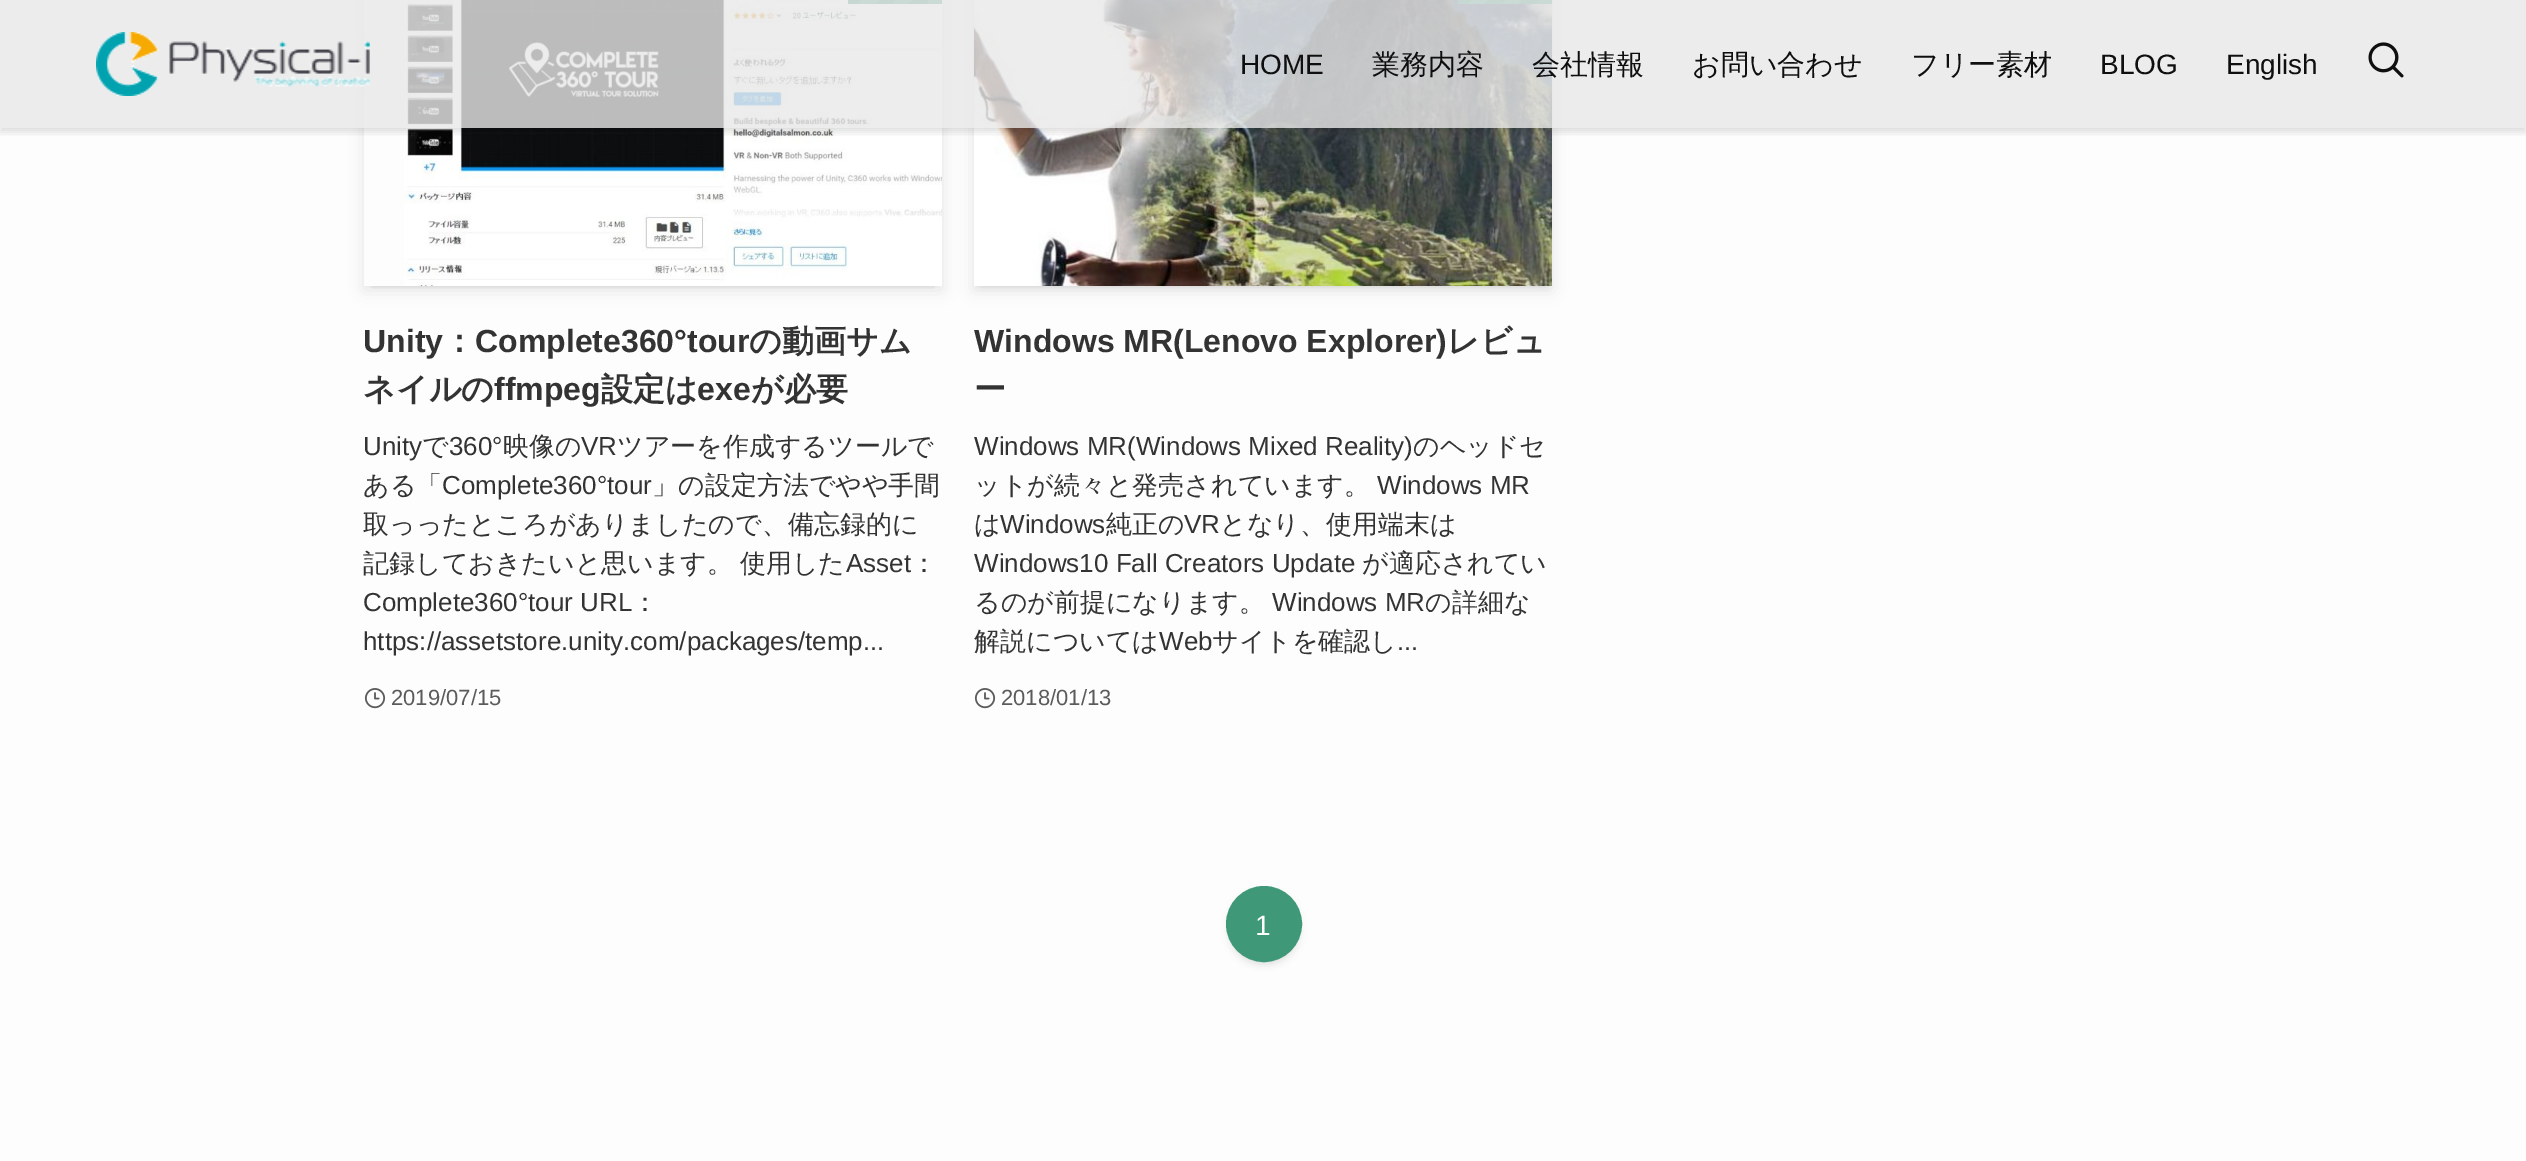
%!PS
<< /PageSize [2526 1161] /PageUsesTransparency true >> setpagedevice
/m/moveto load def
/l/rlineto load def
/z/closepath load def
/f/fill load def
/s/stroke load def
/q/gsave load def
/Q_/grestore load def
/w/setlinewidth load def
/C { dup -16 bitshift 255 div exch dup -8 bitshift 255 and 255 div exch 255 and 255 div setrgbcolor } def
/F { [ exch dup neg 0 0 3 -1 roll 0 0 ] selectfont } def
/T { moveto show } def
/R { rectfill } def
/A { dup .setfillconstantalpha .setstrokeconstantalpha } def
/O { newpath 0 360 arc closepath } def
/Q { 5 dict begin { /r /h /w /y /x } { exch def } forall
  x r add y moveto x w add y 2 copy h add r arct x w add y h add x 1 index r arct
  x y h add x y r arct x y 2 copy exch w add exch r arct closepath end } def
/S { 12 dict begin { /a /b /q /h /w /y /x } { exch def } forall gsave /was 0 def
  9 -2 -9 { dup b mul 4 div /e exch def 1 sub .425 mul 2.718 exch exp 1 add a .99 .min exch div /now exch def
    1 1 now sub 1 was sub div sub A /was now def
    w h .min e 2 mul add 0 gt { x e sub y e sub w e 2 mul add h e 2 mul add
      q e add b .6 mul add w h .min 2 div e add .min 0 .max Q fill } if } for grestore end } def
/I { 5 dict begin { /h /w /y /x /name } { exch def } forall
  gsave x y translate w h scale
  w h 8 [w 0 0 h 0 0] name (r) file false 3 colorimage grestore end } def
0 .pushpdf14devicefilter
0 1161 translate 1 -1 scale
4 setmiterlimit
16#FDFDFD C
0 0 2526 1161 R
q
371 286 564 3 rectclip
16#000000 C
372 -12 562 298 0 4 .1 S
Q_
q
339 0 m 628 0 l 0 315 l -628 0 l z 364 -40 m 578 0 l 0 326 l -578 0 l z eoclip newpath
16#000000 C
364 -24 578 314 0 8 .1 S
Q_
(3.rgb) 404 0 538 286 I
q 848 0 m 94 0 l 0 4 l -94 0 l z clip newpath
<< /ShadingType 2 /ColorSpace /DeviceRGB /Coords [930 17 845 -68] /Extend [true true] /Function << /FunctionType 3 /Domain [0 1] /Functions [<< /FunctionType 2 /Domain [0 1] /C0 [.322 .635 .522] /C1 [.322 .635 .522] /N 1 >> << /FunctionType 2 /Domain [0 1] /C0 [.247 .596 .467] /C1 [.247 .596 .467] /N 1 >> << /FunctionType 2 /Domain [0 1] /C0 [.322 .635 .522] /C1 [.322 .635 .522] /N 1 >> << /FunctionType 2 /Domain [0 1] /C0 [.247 .596 .467] /C1 [.247 .596 .467] /N 1 >> << /FunctionType 2 /Domain [0 1] /C0 [.322 .635 .522] /C1 [.322 .635 .522] /N 1 >> << /FunctionType 2 /Domain [0 1] /C0 [.247 .596 .467] /C1 [.247 .596 .467] /N 1 >> << /FunctionType 2 /Domain [0 1] /C0 [.322 .635 .522] /C1 [.322 .635 .522] /N 1 >> << /FunctionType 2 /Domain [0 1] /C0 [.247 .596 .467] /C1 [.247 .596 .467] /N 1 >> << /FunctionType 2 /Domain [0 1] /C0 [.322 .635 .522] /C1 [.322 .635 .522] /N 1 >> << /FunctionType 2 /Domain [0 1] /C0 [.247 .596 .467] /C1 [.247 .596 .467] /N 1 >>] /Bounds [.1 .2 .3 .4 .5 .6 .7 .8 .9] /Encode [0 1 0 1 0 1 0 1 0 1 0 1 0 1 0 1 0 1 0 1] >> >> shfill Q_
16#000000 C
982 -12 562 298 0 4 .1 S
974 -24 578 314 0 8 .1 S
(5.rgb) 974 0 578 286 I
q 1458 0 m 94 0 l 0 4 l -94 0 l z clip newpath
<< /ShadingType 2 /ColorSpace /DeviceRGB /Coords [1540 17 1455 -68] /Extend [true true] /Function << /FunctionType 3 /Domain [0 1] /Functions [<< /FunctionType 2 /Domain [0 1] /C0 [.322 .635 .522] /C1 [.322 .635 .522] /N 1 >> << /FunctionType 2 /Domain [0 1] /C0 [.247 .596 .467] /C1 [.247 .596 .467] /N 1 >> << /FunctionType 2 /Domain [0 1] /C0 [.322 .635 .522] /C1 [.322 .635 .522] /N 1 >> << /FunctionType 2 /Domain [0 1] /C0 [.247 .596 .467] /C1 [.247 .596 .467] /N 1 >> << /FunctionType 2 /Domain [0 1] /C0 [.322 .635 .522] /C1 [.322 .635 .522] /N 1 >> << /FunctionType 2 /Domain [0 1] /C0 [.247 .596 .467] /C1 [.247 .596 .467] /N 1 >> << /FunctionType 2 /Domain [0 1] /C0 [.322 .635 .522] /C1 [.322 .635 .522] /N 1 >> << /FunctionType 2 /Domain [0 1] /C0 [.247 .596 .467] /C1 [.247 .596 .467] /N 1 >> << /FunctionType 2 /Domain [0 1] /C0 [.322 .635 .522] /C1 [.322 .635 .522] /N 1 >> << /FunctionType 2 /Domain [0 1] /C0 [.247 .596 .467] /C1 [.247 .596 .467] /N 1 >>] /Bounds [.1 .2 .3 .4 .5 .6 .7 .8 .9] /Encode [0 1 0 1 0 1 0 1 0 1 0 1 0 1 0 1 0 1 0 1] >> >> shfill Q_
q
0 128 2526 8 rectclip
0 4 2526 128 0 4 .12 S
Q_
0.8 A
16#E8E8E8 C
0 0 2526 128 R
1 A
(1.rgb) 96 32 274 64 I
/LiberationSans-Regular 28 F
16#0F0F0F C
(HOME) 1240 74 T
/WenQuanYiZenHei-Medium 28 F
(業務内容) 1372 74 T
(会社情報) 1532 74 T
(お問い合わせ) 1692 74 T
(フリー素材) 1911 74 T
/LiberationSans-Regular 28 F
(BLOG) 2100 74 T
(English) 2226 74 T
(2.rgb) 2368 42 36 36 I
/LiberationSans-Bold 32 F
16#333333 C
(Unity) 363 352 T
/WenQuanYiZenHei-Bold 32 F
(：) 443 352 T
/LiberationSans-Bold 32 F
(Complete360°tour) 475 352 T
/WenQuanYiZenHei-Bold 32 F
(の動画サム) 749 352 T
(ネイルの) 363 400 T
/LiberationSans-Bold 32 F
(ffmpeg) 494 400 T
/WenQuanYiZenHei-Bold 32 F
(設定は) 601 400 T
/LiberationSans-Bold 32 F
(exe) 697 400 T
/WenQuanYiZenHei-Bold 32 F
(が必要) 751 400 T
/LiberationSans-Regular 26 F
(Unity) 363 455 T
/WenQuanYiZenHei-Medium 26 F
(で) 422 455 T
/LiberationSans-Regular 26 F
(360°) 449 455 T
/WenQuanYiZenHei-Medium 26 F
(映像の) 503 455 T
/LiberationSans-Regular 26 F
(VR) 581 455 T
/WenQuanYiZenHei-Medium 26 F
(ツアーを作成するツールで) 617 455 T
(ある「) 363 494 T
/LiberationSans-Regular 26 F
(Complete360°tour) 442 494 T
/WenQuanYiZenHei-Medium 26 F
(」の設定方法でやや手間) 652 494 T
(取っったところがありましたので、備忘録的に) 363 533 T
363 572 m -1 0 32 (記録しておきたいと思います。 使用した) widthshow
/LiberationSans-Regular 26 F
(Asset) 846 572 T
/WenQuanYiZenHei-Medium 26 F
(：) 911 572 T
/LiberationSans-Regular 26 F
(Complete360°tour URL) 363 611 T
/WenQuanYiZenHei-Medium 26 F
(：) 632 611 T
/LiberationSans-Regular 26 F
(https://assetstore.unity.com/packages/temp...) 363 650 T
(4.rgb) 364 688 22 21 I
/LiberationSans-Regular 22 F
16#5B5B5B C
(2019/07/15) 391 705 T
/LiberationSans-Bold 32 F
16#333333 C
(Windows MR\(Lenovo Explorer\)) 974 352 T
/WenQuanYiZenHei-Bold 32 F
(レビュ) 1447 352 T
(ー) 974 400 T
/LiberationSans-Regular 26 F
(Windows MR\(Windows Mixed Reality\)) 974 455 T
/WenQuanYiZenHei-Medium 26 F
(のヘッドセ) 1413 455 T
(ットが続々と発売されています。) 974 494 T
/LiberationSans-Regular 26 F
(Windows MR) 1377 494 T
/WenQuanYiZenHei-Medium 26 F
(は) 974 533 T
/LiberationSans-Regular 26 F
(Windows) 1000 533 T
/WenQuanYiZenHei-Medium 26 F
(純正の) 1106 533 T
/LiberationSans-Regular 26 F
(VR) 1184 533 T
/WenQuanYiZenHei-Medium 26 F
(となり、使用端末は) 1220 533 T
/LiberationSans-Regular 26 F
(Windows10 Fall Creators Update) 974 572 T
/WenQuanYiZenHei-Medium 26 F
(が適応されてい) 1362 572 T
(るのが前提になります。) 974 611 T
/LiberationSans-Regular 26 F
(Windows MR) 1272 611 T
/WenQuanYiZenHei-Medium 26 F
(の詳細な) 1425 611 T
(解説については) 974 650 T
/LiberationSans-Regular 26 F
(Web) 1159 650 T
/WenQuanYiZenHei-Medium 26 F
(サイトを確認し) 1212 650 T
/LiberationSans-Regular 26 F
(...) 1397 650 T
(4.rgb) 974 688 22 21 I
/LiberationSans-Regular 22 F
16#5B5B5B C
(2018/01/13) 1001 705 T
16#000000 C
1234 902 60 60 30 4 .1 S
1226 890 76 76 38 4 .05 S
16#3F9877 C
1264 924 37 O q f Q_
2 w
s
/LiberationSans-Regular 28 F
16#FFFFFF C
(1) 1255 935 T
.poppdf14devicefilter showpage
